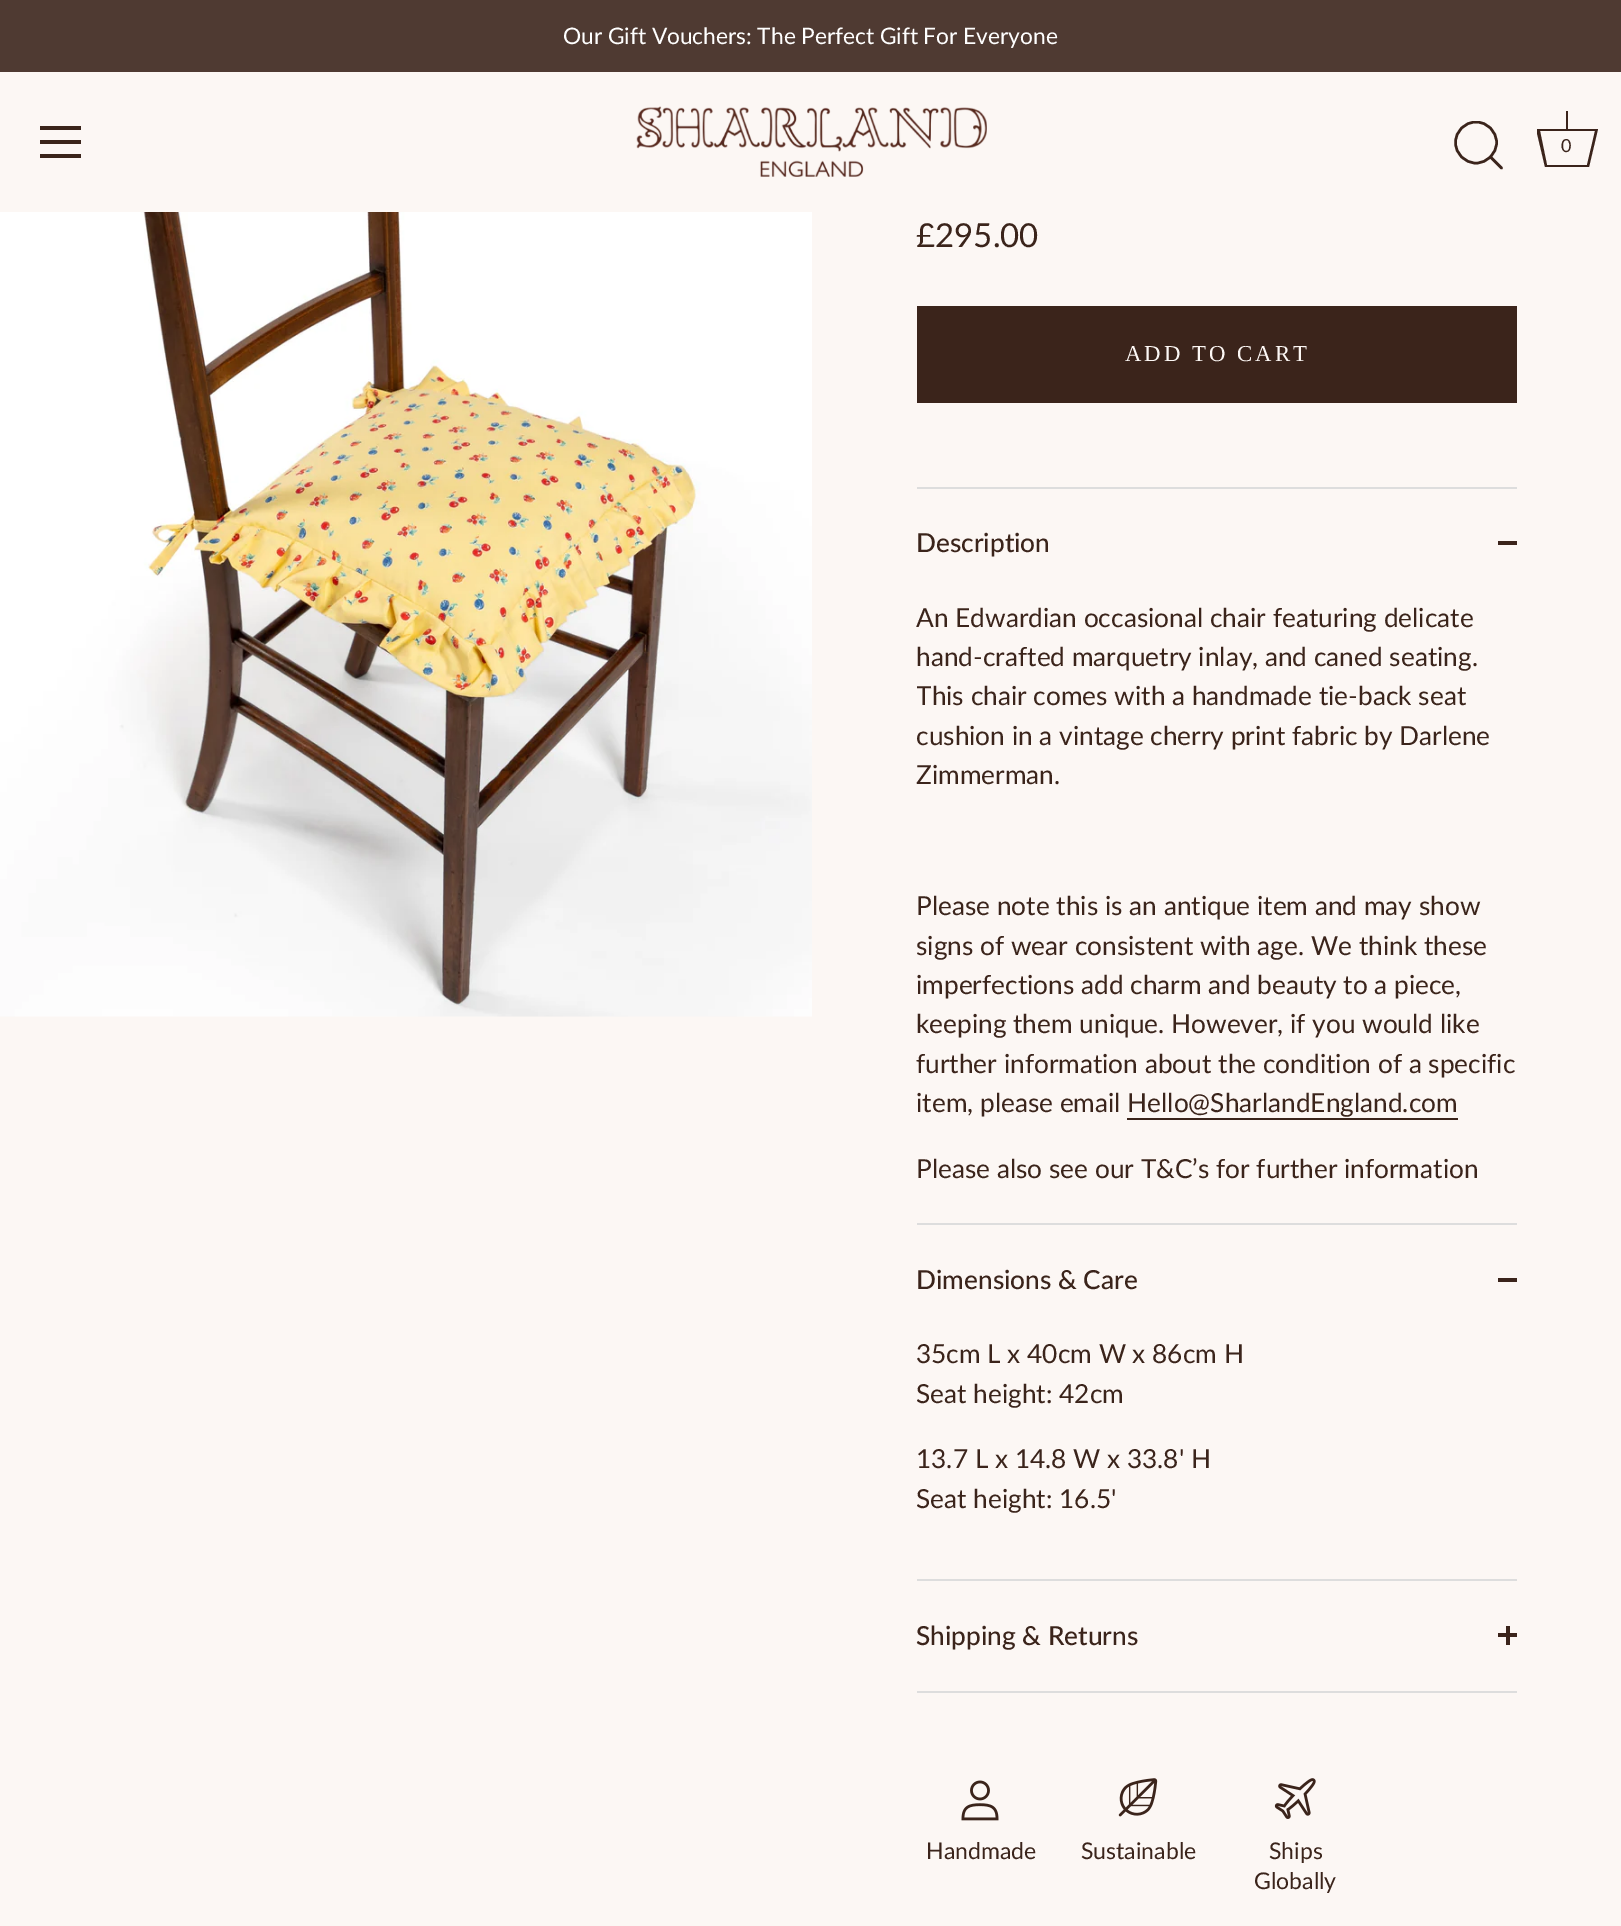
%!PS
<< /PageSize [1621 1926] >> setpagedevice
/m/moveto load def
/l/rlineto load def
/z/closepath load def
/f/fill load def
/s/stroke load def
/q/gsave load def
/Q_/grestore load def
/w/setlinewidth load def
/C { dup -16 bitshift 255 div exch dup -8 bitshift 255 and 255 div exch 255 and 255 div setrgbcolor } def
/F { [ exch dup neg 0 0 3 -1 roll 0 0 ] selectfont } def
/T { moveto show } def
/R { rectfill } def
/O { newpath 0 360 arc closepath } def
/I { 5 dict begin { /h /w /y /x /name } { exch def } forall
  gsave x y translate w h scale
  w h 8 [w 0 0 h 0 0] name (r) file false 3 colorimage grestore end } def
0 1926 translate 1 -1 scale
4 setmiterlimit
16#FCF7F4 C
0 0 1621 1926 R
16#4F3A32 C
0 0 1621 72 R
/Lato-Regular 22.75 F
16#FFFFFF C
563 44 m -.25 0 32 (Our Gift Vouchers: The Perfect Gift For Everyone) widthshow
16#3B241B C
40 126 41 4 R
40 140 41 4 R
40 154 41 4 R
(1.rgb) 636 106 351 71 I
q
1454 121 51 51 rectclip
2.5 w
1476 142.5 20.5 O s
Q_
2.5 w
1 setlinecap
1 setlinejoin
1501.5 168 m -11 -11 l s
1566 111 2 18 R
q
1537 109 61 61 rectclip
1595 131 m -8 34 l -40 0 l -7 -34 l 55 0 l 1598 129 m -62 0 l 9 38 l 44 0 l z f
Q_
/Lato-Regular 18 F
(0) 1561 152 T
(2.rgb) 0 212 812 805 I
/Lato-Regular 33 F
(£295.00) 916 247 T
917 306 600 97 R
/LiberationSerif-Regular 22.75 F
16#FCF7F4 C
1125 361 m 3 0 (ADD TO CART) ashow
16#DDDDDD C
917 487 600 2 R
917 1223 600 2 R
/Lato-Medium 26.25 F
16#3B241B C
(Description) 916 552 T
1498 541 19 4 R
/Lato-Regular 26.25 F
(An Edwardian occasional chair featuring delicate) 916 627 T
(hand-crafted marquetry inlay, and caned seating.) 916 666 T
q
917 597 600 626 rectclip
(This chair comes with a handmade tie-back seat) 916 705 T
Q_
(cushion in a vintage cherry print fabric by Darlene) 916 745 T
(Zimmerman.) 916 784 T
(Please note this is an antique item and may show) 916 915 T
(signs of wear consistent with age. We think these) 916 955 T
(imperfections add charm and beauty to a piece,) 916 994 T
(keeping them unique. However, if you would like) 916 1033 T
(further information about the condition of a specific) 916 1073 T
(item, please email Hello@SharlandEngland.com) 916 1112 T
1127 1118 331 2 R
(Please also see our T&C’s for further information) 916 1178 T
16#DDDDDD C
917 1579 600 2 R
/Lato-Medium 26.25 F
16#3B241B C
(Dimensions & Care) 916 1289 T
1498 1278 19 4 R
/Lato-Regular 26.25 F
(35cm L x 40cm W x 86cm H) 916 1363 T
(Seat height: 42cm) 916 1403 T
(13.7 L x 14.8 W x 33.8' H) 916 1468 T
(Seat height: 16.5') 916 1508 T
16#DDDDDD C
917 1691 600 2 R
/Lato-Medium 26.25 F
16#3B241B C
(Shipping & Returns) 916 1645 T
1506 1626 4 19 R
1498 1633 19 4 R
(3.rgb) 961 1780 38 41 I
/Lato-Regular 23 F
(Handmade) 926 1859 T
(4.rgb) 1118 1778 40 39 I
(Sustainable) 1081 1859 T
(5.rgb) 1274 1778 42 41 I
(Ships) 1269 1859 T
(Globally) 1254 1889 T
showpage
